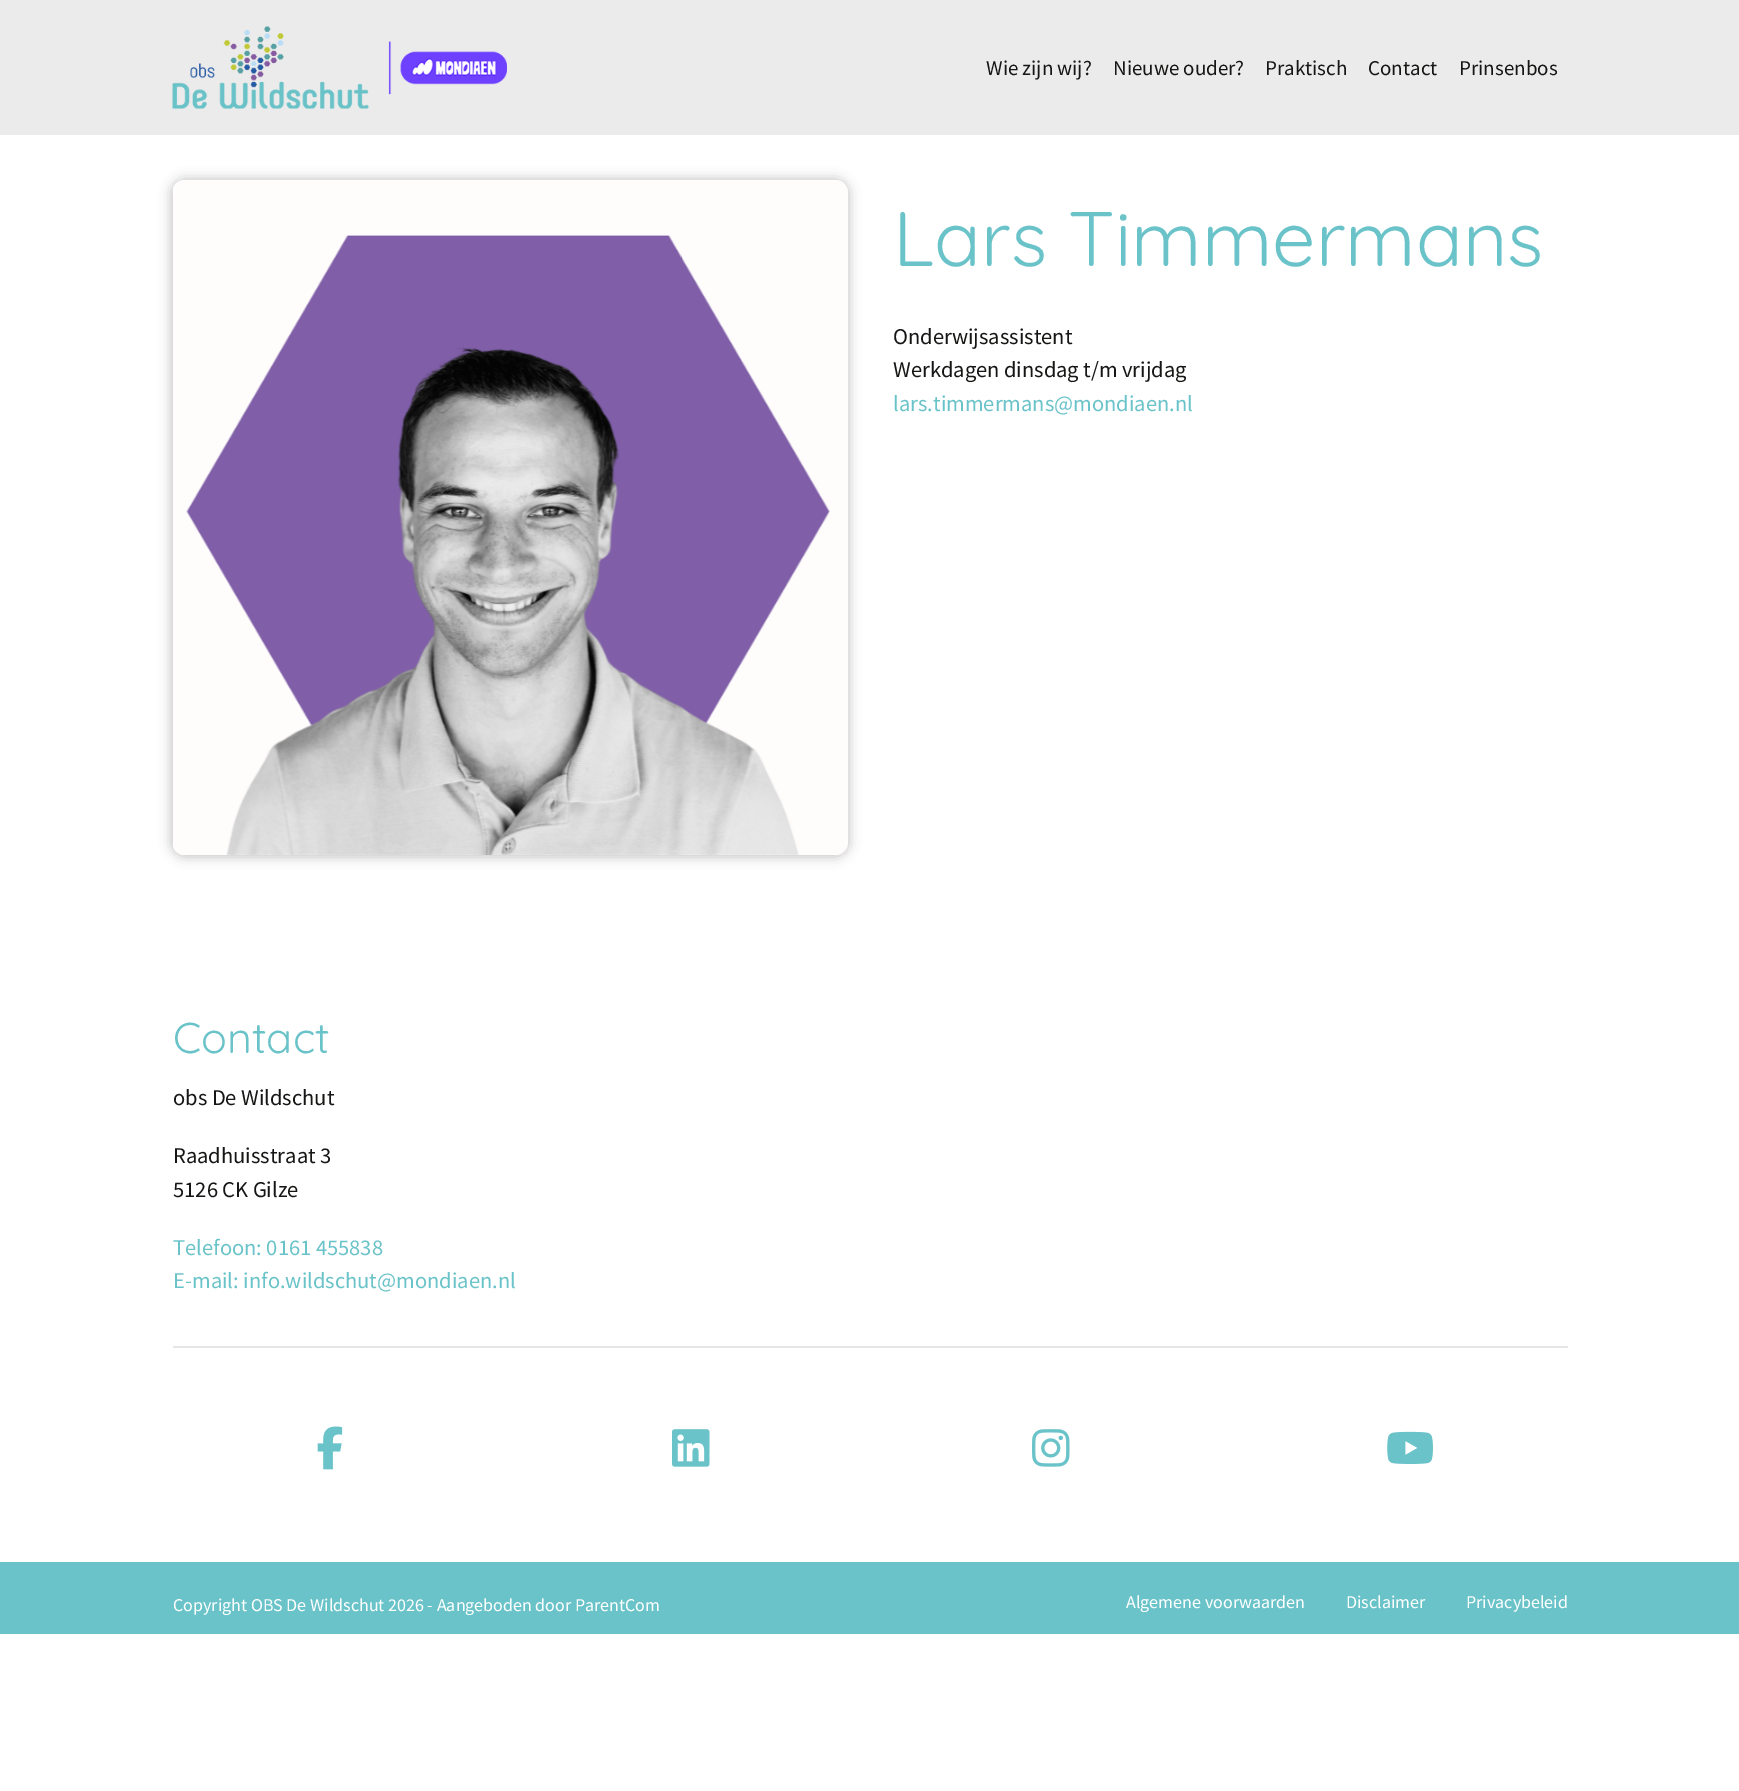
%!PS
<< /PageSize [1739 1791] /PageUsesTransparency true >> setpagedevice
/C { dup -16 bitshift 255 div exch dup -8 bitshift 255 and 255 div exch 255 and 255 div setrgbcolor } def
/F { [ exch dup neg 0 0 3 -1 roll 0 0 ] selectfont } def
/T { moveto show } def
/R { rectfill } def
/A { dup .setfillconstantalpha .setstrokeconstantalpha } def
/Q { 5 dict begin { /r /h /w /y /x } { exch def } forall
  x r add y moveto x w add y 2 copy h add r arct x w add y h add x 1 index r arct
  x y h add x y r arct x y 2 copy exch w add exch r arct closepath end } def
/S { 12 dict begin { /a /b /q /h /w /y /x } { exch def } forall gsave /was 0 def
  9 -2 -9 { dup b mul 4 div /e exch def 1 sub .425 mul 2.718 exch exp 1 add a .99 .min exch div /now exch def
    1 1 now sub 1 was sub div sub A /was now def
    w h .min e 2 mul add 0 gt { x e sub y e sub w e 2 mul add h e 2 mul add
      q e add b .6 mul add w h .min 2 div e add .min 0 .max Q fill } if } for grestore end } def
/I { 5 dict begin { /h /w /y /x /name } { exch def } forall
  gsave x y translate w h scale
  w h 8 [w 0 0 h 0 0] name (r) file false 3 colorimage grestore end } def
0 .pushpdf14devicefilter
0 1791 translate 1 -1 scale
4 setmiterlimit
16#FFFFFF C
0 0 1739 1791 R
16#EBEBEB C
0 0 1739 135 R
(1.rgb) 172 26 335 83 I
/SourceSansPro-Regular 21 F
16#161615 C
(Wie zijn wij?) 986 75 T
(Nieuwe ouder?) 1113 75 T
(Praktisch) 1265 75 T
(Contact) 1368 75 T
(Prinsenbos) 1459 75 T
16#C1C1C1 C
171 179 678 678 14 6 1 S
(2.rgb) 173 180 675 675 I
/Quicksand-Light 77.25 F
16#69C3C8 C
(Lars Timmermans) 893 266 T
/SourceSansPro-Regular 22.5 F
16#161615 C
(Onderwijsassistent) 893 344 T
(Werkdagen dinsdag t/m vrijdag) 893 377 T
16#69C3C8 C
(lars.timmermans@mondiaen.nl) 893 411 T
/Quicksand-Light 43 F
(Contact) 173 1053 T
/SourceSansPro-Regular 22.5 F
16#161615 C
(obs De Wildschut) 173 1105 T
(Raadhuisstraat 3) 173 1163 T
(5126 CK Gilze) 173 1197 T
16#69C3C8 C
(Telefoon: 0161 455838) 173 1255 T
(E-mail: info.wildschut@mondiaen.nl) 173 1288 T
16#E6E6E6 C
173 1346 1395 2 R
(3.rgb) 317 1426 26 44 I
(4.rgb) 672 1429 38 38 I
(5.rgb) 1032 1429 38 38 I
(6.rgb) 1387 1431 46 33 I
16#69C3C8 C
0 1562 1739 72 R
/SourceSansPro-Regular 18 F
16#FFFFFF C
(Copyright OBS De Wildschut 2026 - Aangeboden door ParentCom) 173 1611 T
(Algemene voorwaarden) 1126 1608 T
(Disclaimer) 1346 1608 T
(Privacybeleid) 1466 1608 T
.poppdf14devicefilter showpage
